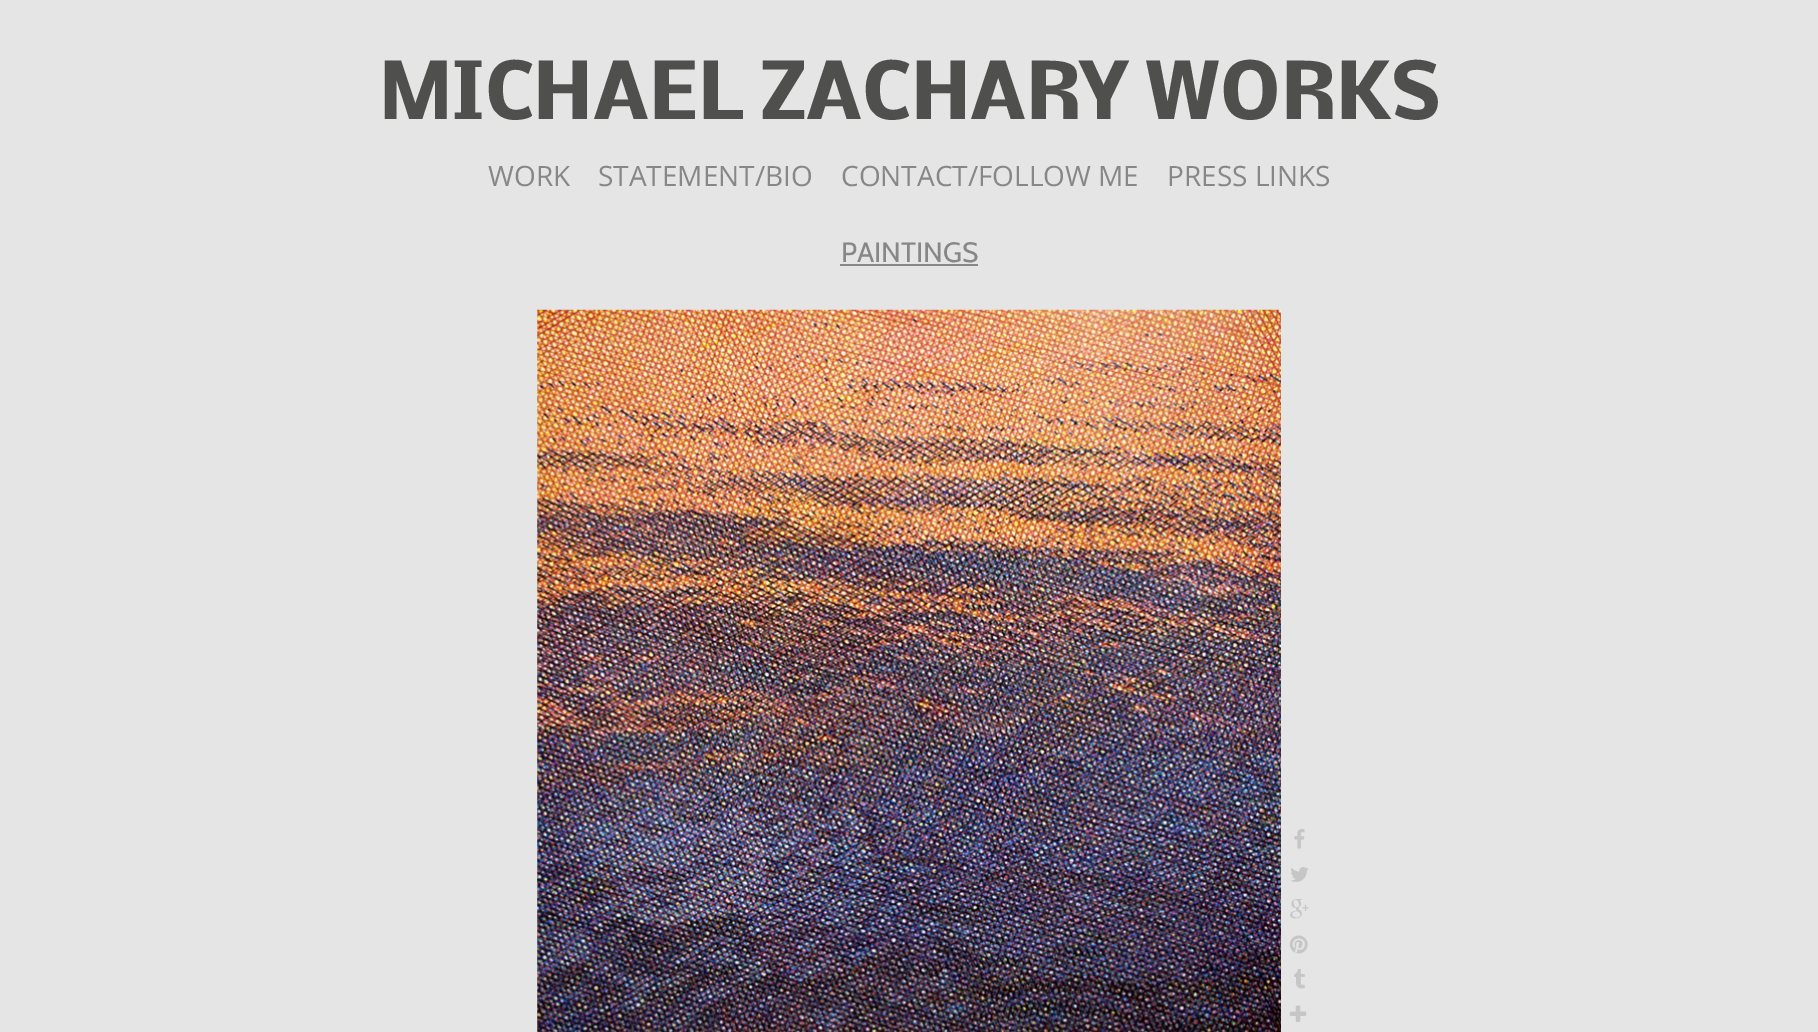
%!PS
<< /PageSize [1818 1032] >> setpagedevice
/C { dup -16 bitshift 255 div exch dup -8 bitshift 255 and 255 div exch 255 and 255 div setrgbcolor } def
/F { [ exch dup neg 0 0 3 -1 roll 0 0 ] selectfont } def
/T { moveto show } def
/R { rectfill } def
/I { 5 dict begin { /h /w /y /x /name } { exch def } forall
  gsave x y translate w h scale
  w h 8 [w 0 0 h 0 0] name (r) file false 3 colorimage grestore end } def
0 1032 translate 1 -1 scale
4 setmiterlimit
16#E5E5E5 C
0 0 1818 1032 R
/Nobile-Bold 73.5 F
16#4F504E C
(MICHAEL ZACHARY WORKS) 379 119 T
/OpenSans-Regular 28 F
16#878787 C
(WORK) 488 186 T
(STATEMENT/BIO) 598 186 T
(CONTACT/FOLLOW ME) 841 186 T
(PRESS LINKS) 1167 186 T
/Cabin-Regular 28 F
(PAINTINGS) 841 262 T
840 264 138 2 R
(1.rgb) 537 309 744 723 I
(2.rgb) 1294 829 11 20 I
(3.rgb) 1291 867 18 15 I
(4.rgb) 1290 899 19 20 I
(5.rgb) 1289 935 19 19 I
(6.rgb) 1294 969 11 20 I
(7.rgb) 1289 1005 18 17 I
showpage
